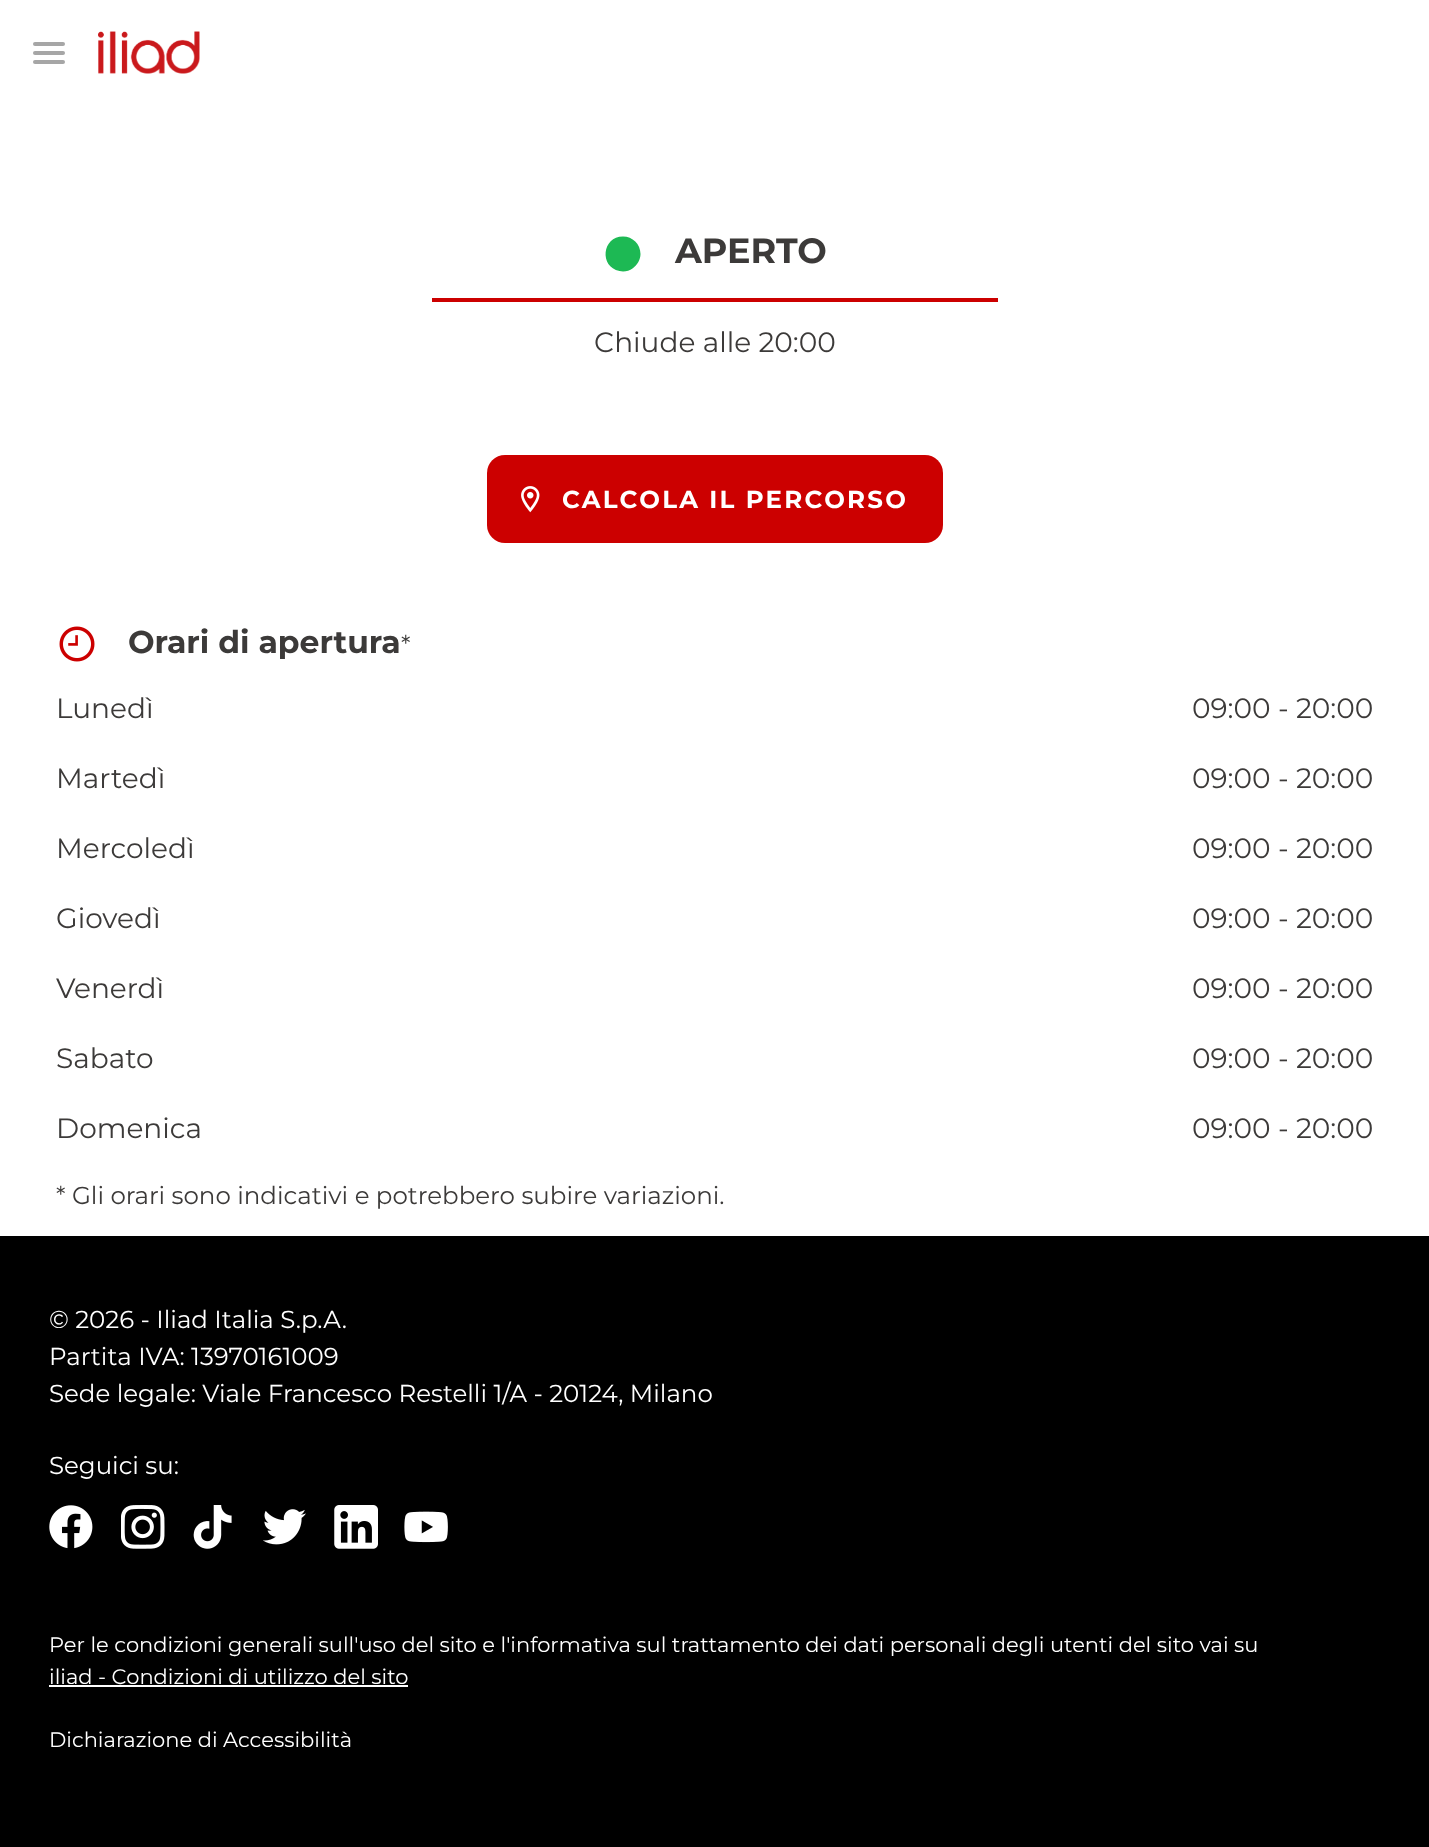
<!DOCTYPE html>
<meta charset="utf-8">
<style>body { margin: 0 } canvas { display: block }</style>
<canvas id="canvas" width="1429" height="1847"></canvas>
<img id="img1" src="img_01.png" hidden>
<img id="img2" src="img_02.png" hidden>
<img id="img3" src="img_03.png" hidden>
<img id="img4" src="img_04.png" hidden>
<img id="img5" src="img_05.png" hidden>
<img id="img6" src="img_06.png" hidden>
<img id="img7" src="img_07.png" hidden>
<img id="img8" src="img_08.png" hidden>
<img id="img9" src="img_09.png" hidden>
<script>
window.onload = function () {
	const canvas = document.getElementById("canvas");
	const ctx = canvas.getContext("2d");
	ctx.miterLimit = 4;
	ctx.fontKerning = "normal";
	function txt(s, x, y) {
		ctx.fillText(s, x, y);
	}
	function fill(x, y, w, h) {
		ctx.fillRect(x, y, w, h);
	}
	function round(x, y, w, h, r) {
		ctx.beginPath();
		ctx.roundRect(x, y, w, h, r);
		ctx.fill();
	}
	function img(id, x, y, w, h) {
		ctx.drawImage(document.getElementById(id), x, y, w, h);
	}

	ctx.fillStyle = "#FFFFFF";
	fill(0, 0, 1429, 1847);
	ctx.fillStyle = "#A6A6A6";
	round(33, 42, 32, 4, 2);
	round(33, 51, 32, 4, 2);
	round(33, 60, 32, 4, 2);
	img("img1", 98, 31, 102, 43);
	ctx.fillStyle = "#1DB954";
	ctx.beginPath();
	ctx.moveTo(623, 236.5);
	ctx.bezierCurveTo(602, 236.5, 599, 267, 619.5, 271);
	ctx.bezierCurveTo(624, 272, 629, 271, 632.5, 268.5);
	ctx.bezierCurveTo(637.5, 265, 640.5, 259.5, 640.5, 254);
	ctx.bezierCurveTo(640.5, 244, 632.5, 236.5, 623, 236.5);
	ctx.closePath();
	ctx.fill();
	ctx.fillStyle = "#CC0000";
	fill(432, 298, 566, 4);
	round(487, 455, 456, 88, 18);
	img("img2", 521, 486, 19, 27);
	img("img3", 59, 626, 36, 36);
	ctx.fillStyle = "#000000";
	fill(0, 1236, 1429, 611);
	img("img4", 49, 1505, 44, 44);
	img("img5", 121, 1505, 44, 44);
	img("img6", 193, 1505, 39, 44);
	img("img7", 263, 1509, 43, 36);
	img("img8", 334, 1505, 44, 44);
	img("img9", 404, 1511, 44, 32);
	ctx.fillStyle = "#FFFFFF";
	fill(49, 1685, 359, 2);
	ctx.font = "100 35px Montserrat";
	ctx.fillStyle = "#3C3A39";
	txt("APERTO", 675, 263);
	ctx.font = "100 28px 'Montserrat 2'";
	txt("Chiude alle 20:00", 594, 352);
	ctx.letterSpacing = "2.2px";
	ctx.font = "100 24.5px Montserrat";
	ctx.fillStyle = "#FFFFFF";
	txt("CALCOLA IL PERCORSO", 562, 508);
	ctx.letterSpacing = "0px";
	ctx.font = "100 31.5px Montserrat";
	ctx.fillStyle = "#3C3A39";
	txt("Orari di apertura", 128, 653);
	ctx.font = "100 24.5px 'Montserrat 2'";
	txt("*", 401, 653);
	ctx.font = "100 28px 'Montserrat 2'";
	txt("Lunedì", 56, 718);
	txt("09:00 - 20:00", 1192, 718);
	txt("Martedì", 56, 788);
	txt("09:00 - 20:00", 1192, 788);
	txt("Mercoledì", 56, 858);
	txt("09:00 - 20:00", 1192, 858);
	txt("Giovedì", 56, 928);
	txt("09:00 - 20:00", 1192, 928);
	txt("Venerdì", 56, 998);
	txt("09:00 - 20:00", 1192, 998);
	txt("Sabato", 56, 1068);
	txt("09:00 - 20:00", 1192, 1068);
	txt("Domenica", 56, 1138);
	txt("09:00 - 20:00", 1192, 1138);
	ctx.font = "100 24.5px 'Montserrat 2'";
	txt("* Gli orari sono indicativi e potrebbero subire variazioni.", 56, 1204);
	ctx.fillStyle = "#FFFFFF";
	txt("© 2026 - Iliad Italia S.p.A.", 49, 1328);
	txt("Partita IVA: 13970161009", 49, 1365);
	txt("Sede legale: Viale Francesco Restelli 1/A - 20124, Milano", 49, 1402);
	txt("Seguici su:", 49, 1474);
	ctx.font = "100 21px 'Montserrat 2'";
	txt("Per le condizioni generali sull'uso del sito e l'informativa sul trattamento dei dati personali degli utenti del sito vai su", 49, 1652);
	txt("iliad - Condizioni di utilizzo del sito", 49, 1684);
	txt("Dichiarazione di Accessibilità", 49, 1747);
};
</script>
